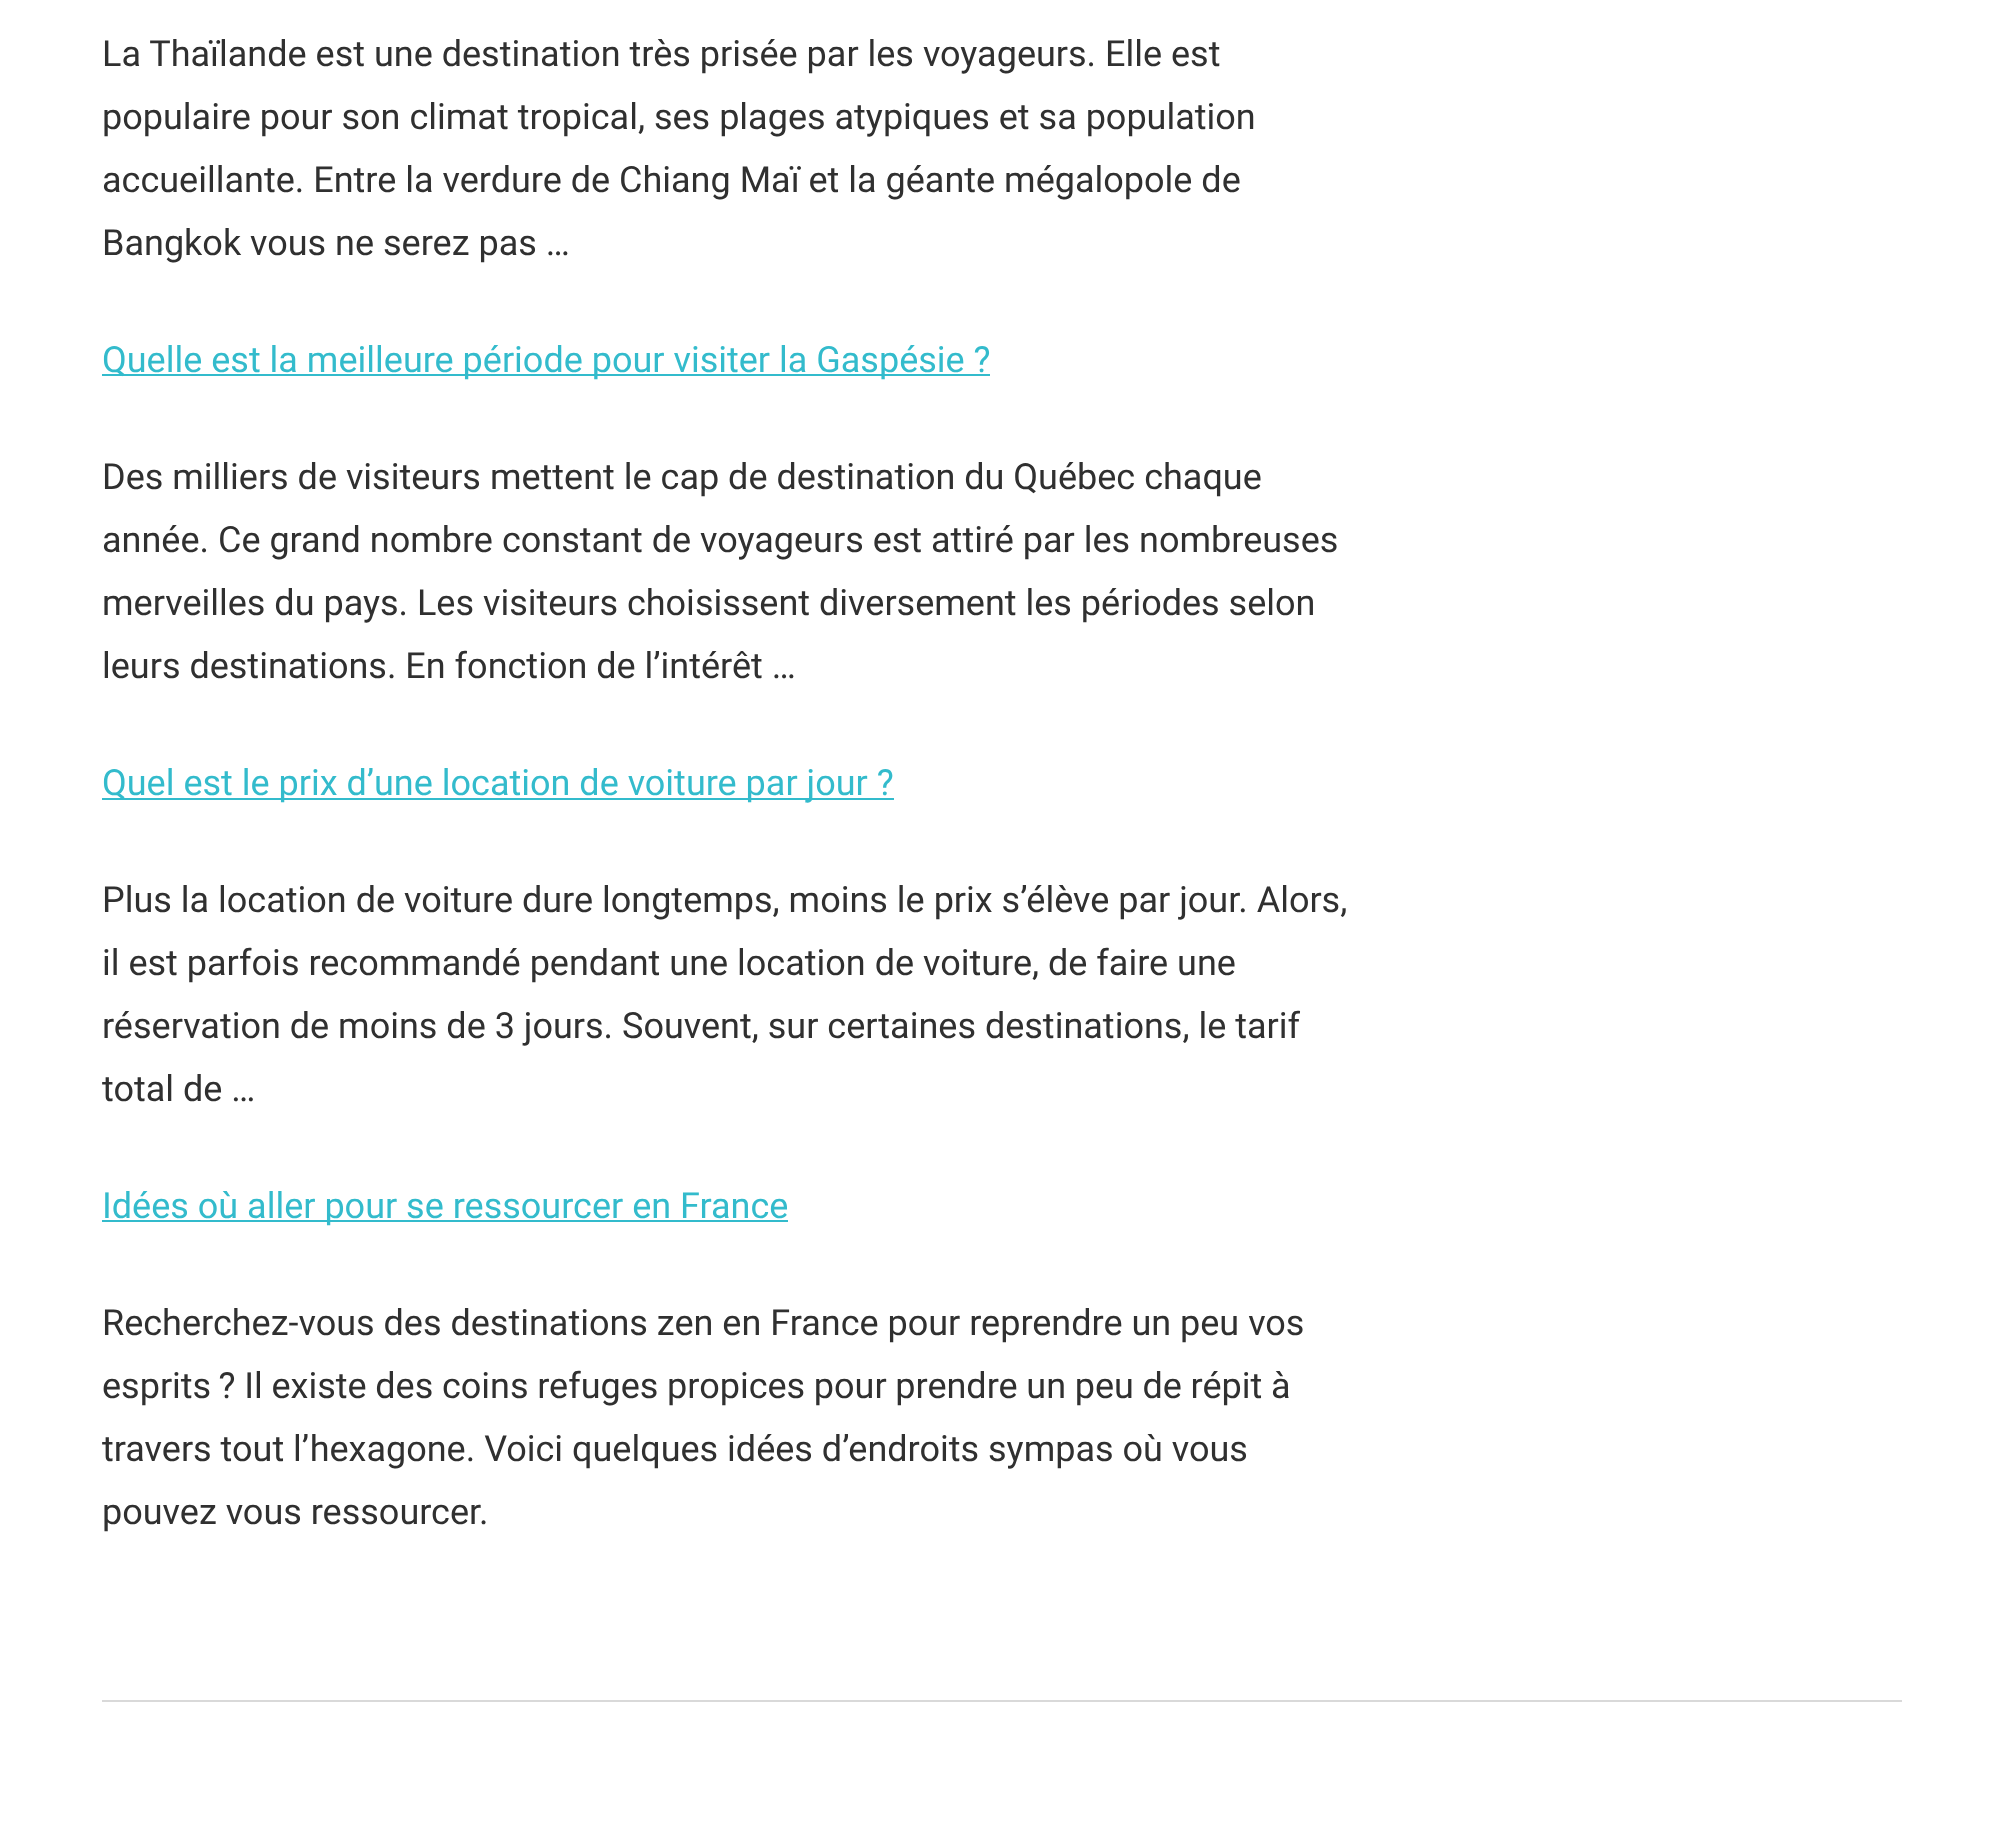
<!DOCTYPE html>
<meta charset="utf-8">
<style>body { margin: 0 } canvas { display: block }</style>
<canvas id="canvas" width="2004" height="1837"></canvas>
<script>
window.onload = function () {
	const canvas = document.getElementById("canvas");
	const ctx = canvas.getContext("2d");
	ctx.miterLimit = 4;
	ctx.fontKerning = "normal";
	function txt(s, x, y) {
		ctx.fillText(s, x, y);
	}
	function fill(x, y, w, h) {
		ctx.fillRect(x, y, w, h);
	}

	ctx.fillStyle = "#FFFFFF";
	fill(0, 0, 2004, 1837);
	ctx.fillStyle = "#33BBCC";
	fill(102, 374, 888, 2);
	fill(102, 798, 792, 2);
	fill(102, 1220, 686, 2);
	ctx.fillStyle = "#D9D9D9";
	fill(102, 1700, 1800, 2);
	ctx.font = "36px Roboto";
	ctx.fillStyle = "#303030";
	txt("La Thaïlande est une destination très prisée par les voyageurs. Elle est", 102, 66);
	txt("populaire pour son climat tropical, ses plages atypiques et sa population", 102, 129);
	txt("accueillante. Entre la verdure de Chiang Maï et la géante mégalopole de", 102, 192);
	txt("Bangkok vous ne serez pas …", 102, 255);
	ctx.fillStyle = "#33BBCC";
	txt("Quelle est la meilleure période pour visiter la Gaspésie ?", 102, 372);
	ctx.fillStyle = "#303030";
	txt("Des milliers de visiteurs mettent le cap de destination du Québec chaque", 102, 489);
	txt("année. Ce grand nombre constant de voyageurs est attiré par les nombreuses", 102, 552);
	txt("merveilles du pays. Les visiteurs choisissent diversement les périodes selon", 102, 615);
	txt("leurs destinations. En fonction de l’intérêt …", 102, 678);
	ctx.fillStyle = "#33BBCC";
	txt("Quel est le prix d’une location de voiture par jour ?", 102, 795);
	ctx.fillStyle = "#303030";
	txt("Plus la location de voiture dure longtemps, moins le prix s’élève par jour. Alors,", 102, 912);
	txt("il est parfois recommandé pendant une location de voiture, de faire une", 102, 975);
	txt("réservation de moins de 3 jours. Souvent, sur certaines destinations, le tarif", 102, 1038);
	txt("total de …", 102, 1101);
	ctx.fillStyle = "#33BBCC";
	txt("Idées où aller pour se ressourcer en France", 102, 1218);
	ctx.fillStyle = "#303030";
	txt("Recherchez-vous des destinations zen en France pour reprendre un peu vos", 102, 1335);
	ctx.wordSpacing = "-0.25px";
	txt("esprits ? Il existe des coins refuges propices pour prendre un peu de répit à", 102, 1398);
	ctx.wordSpacing = "0px";
	txt("travers tout l’hexagone. Voici quelques idées d’endroits sympas où vous", 102, 1461);
	txt("pouvez vous ressourcer.", 102, 1524);
};
</script>
